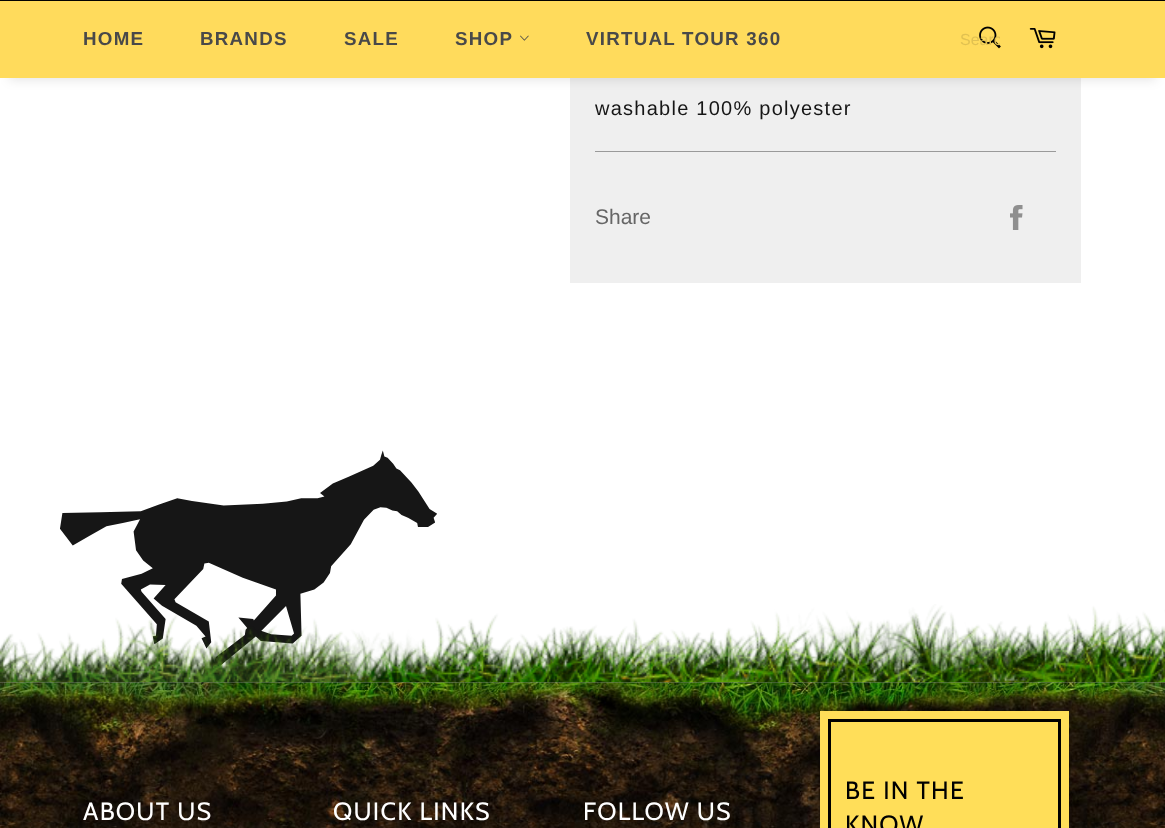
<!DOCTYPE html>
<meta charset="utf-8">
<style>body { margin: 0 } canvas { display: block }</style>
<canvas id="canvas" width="1165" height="828"></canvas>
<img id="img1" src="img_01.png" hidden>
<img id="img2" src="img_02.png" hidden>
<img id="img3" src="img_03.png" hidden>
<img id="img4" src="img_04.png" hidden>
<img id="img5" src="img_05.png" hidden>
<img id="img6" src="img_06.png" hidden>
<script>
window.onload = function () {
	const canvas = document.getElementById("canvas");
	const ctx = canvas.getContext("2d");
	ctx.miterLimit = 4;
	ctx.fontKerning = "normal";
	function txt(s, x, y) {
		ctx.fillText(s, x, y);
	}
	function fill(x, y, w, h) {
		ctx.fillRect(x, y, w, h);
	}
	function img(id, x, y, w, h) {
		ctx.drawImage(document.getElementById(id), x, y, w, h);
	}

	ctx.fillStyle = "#FFFFFF";
	fill(0, 0, 1165, 828);
	ctx.fillStyle = "#EFEFEF";
	fill(570, 78, 511, 205);
	ctx.fillStyle = "rgba(0, 0, 0, 0.1)";
	ctx.filter = "blur(5.5px)";
	ctx.beginPath();
	ctx.rect(9, 20, 1147, 60);
	ctx.fill();
	ctx.filter = "none";
	ctx.fillStyle = "#FFDB5C";
	fill(0, 1, 1165, 77);
	ctx.fillStyle = "#030200";
	fill(0, 0, 1165, 1);
	img("img1", 520, 35, 9, 6);
	img("img2", 979, 26, 22, 23);
	img("img3", 1029, 28, 27, 21);
	ctx.fillStyle = "#9A9A9A";
	fill(595, 151, 461, 1);
	img("img4", 1010, 205, 13, 25);
	img("img5", 0, 682, 1165, 146);
	ctx.fillStyle = "rgba(0, 0, 0, 0.4)";
	ctx.filter = "blur(4.5px)";
	ctx.beginPath();
	ctx.rect(820, 714, 249, 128);
	ctx.fill();
	ctx.filter = "none";
	ctx.fillStyle = "#FFDE59";
	fill(820, 711, 249, 117);
	ctx.strokeStyle = "#000000";
	ctx.lineWidth = 3;
	ctx.strokeRect(829.5, 720.5, 230, 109);
	ctx.letterSpacing = "1.25px";
	ctx.font = "bold 18.75px Arimo";
	ctx.fillStyle = "#494949";
	txt("HOME", 83, 45);
	txt("BRANDS", 200, 45);
	txt("SALE", 344, 45);
	txt("SHOP", 455, 45);
	txt("VIRTUAL TOUR 360", 586, 45);
	ctx.save();
	ctx.beginPath();
	ctx.rect(960, 30, 40, 19);
	ctx.clip();
	ctx.letterSpacing = "0px";
	ctx.font = "16px Arimo";
	ctx.fillStyle = "#E1C151";
	txt("Searc", 960, 45);
	ctx.restore();
	ctx.font = "20px Arimo";
	ctx.fillStyle = "#161616";
	txt("washable 100% polyester", 595, 115);
	ctx.letterSpacing = "0px";
	ctx.font = "21px Arimo";
	ctx.fillStyle = "#666666";
	txt("Share", 595, 224);
	ctx.font = "400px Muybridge";
	ctx.fillStyle = "#161616";
	txt("🐎", 0, 689);
	img("img6", 0, 604, 1165, 79);
	ctx.letterSpacing = "1.25px";
	ctx.font = "25px Cabin";
	ctx.fillStyle = "#FFFFFF";
	txt("ABOUT US", 83, 820);
	txt("QUICK LINKS", 333, 820);
	txt("FOLLOW US", 583, 820);
	ctx.fillStyle = "#000000";
	txt("BE IN THE", 845, 799);
	txt("KNOW", 845, 833);
};
</script>
